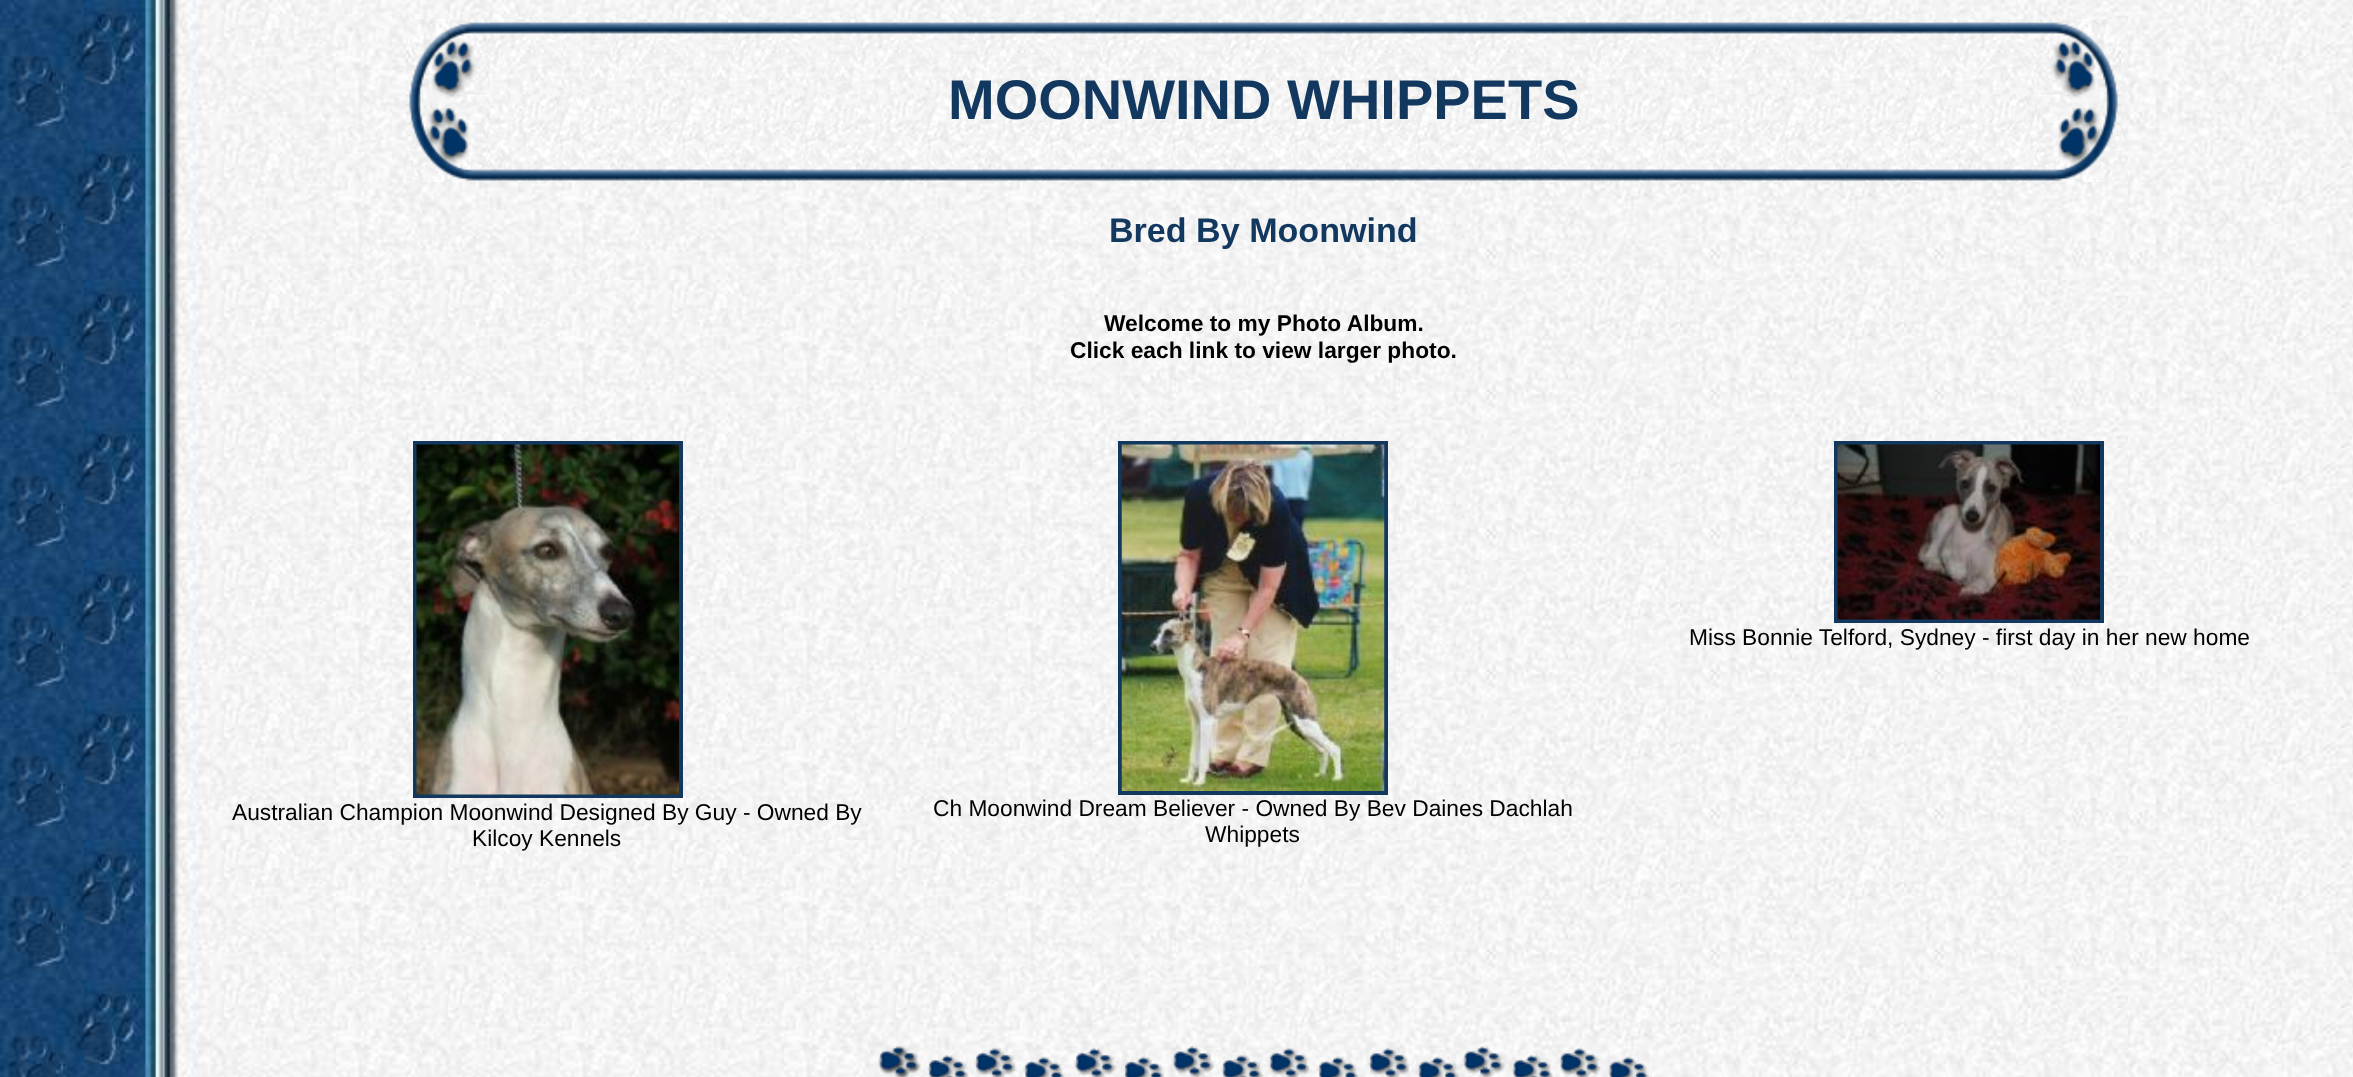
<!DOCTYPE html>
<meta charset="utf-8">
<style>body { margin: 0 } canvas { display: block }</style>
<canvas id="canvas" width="2353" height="1077"></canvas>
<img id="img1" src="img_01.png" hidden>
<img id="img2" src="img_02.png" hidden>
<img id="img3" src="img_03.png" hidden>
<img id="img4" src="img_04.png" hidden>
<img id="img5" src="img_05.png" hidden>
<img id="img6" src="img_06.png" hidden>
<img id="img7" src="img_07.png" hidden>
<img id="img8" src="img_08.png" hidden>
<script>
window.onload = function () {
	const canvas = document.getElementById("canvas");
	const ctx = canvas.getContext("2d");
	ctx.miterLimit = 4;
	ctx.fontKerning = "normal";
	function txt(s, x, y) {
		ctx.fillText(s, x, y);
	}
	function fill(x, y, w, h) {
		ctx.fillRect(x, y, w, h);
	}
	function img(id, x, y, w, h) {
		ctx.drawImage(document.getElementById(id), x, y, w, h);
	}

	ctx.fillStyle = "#FFFFFF";
	fill(0, 0, 2353, 1077);
	img("img1", 0, 0, 2353, 1077);
	img("img2", 406, 19, 84, 163);
	img("img3", 490, 19, 1547, 163);
	img("img4", 2037, 19, 84, 163);
	ctx.fillStyle = "#12385F";
	fill(1834, 441, 270, 182);
	img("img5", 1837, 444, 263, 176);
	fill(413, 441, 270, 357);
	img("img6", 416, 444, 263, 351);
	fill(1118, 441, 270, 354);
	img("img7", 1121, 444, 264, 347);
	img("img8", 878, 1046, 774, 31);
	ctx.font = "bold 56px Liberation Sans";
	txt("MOONWIND WHIPPETS", 948, 119);
	ctx.font = "bold 34.1px Liberation Sans";
	txt("Bred By Moonwind", 1109, 242);
	ctx.font = "bold 22.75px Liberation Sans";
	ctx.fillStyle = "#000000";
	txt("Welcome to my Photo Album.", 1104, 331);
	txt("Click each link to view larger photo.", 1070, 358);
	ctx.font = "22.75px Liberation Sans";
	txt("Miss Bonnie Telford, Sydney - first day in her new home", 1689, 645);
	txt("Australian Champion Moonwind Designed By Guy - Owned By", 232, 820);
	txt("Kilcoy Kennels", 472, 846);
	txt("Ch Moonwind Dream Believer - Owned By Bev Daines Dachlah", 933, 816);
	txt("Whippets", 1205, 842);
};
</script>
